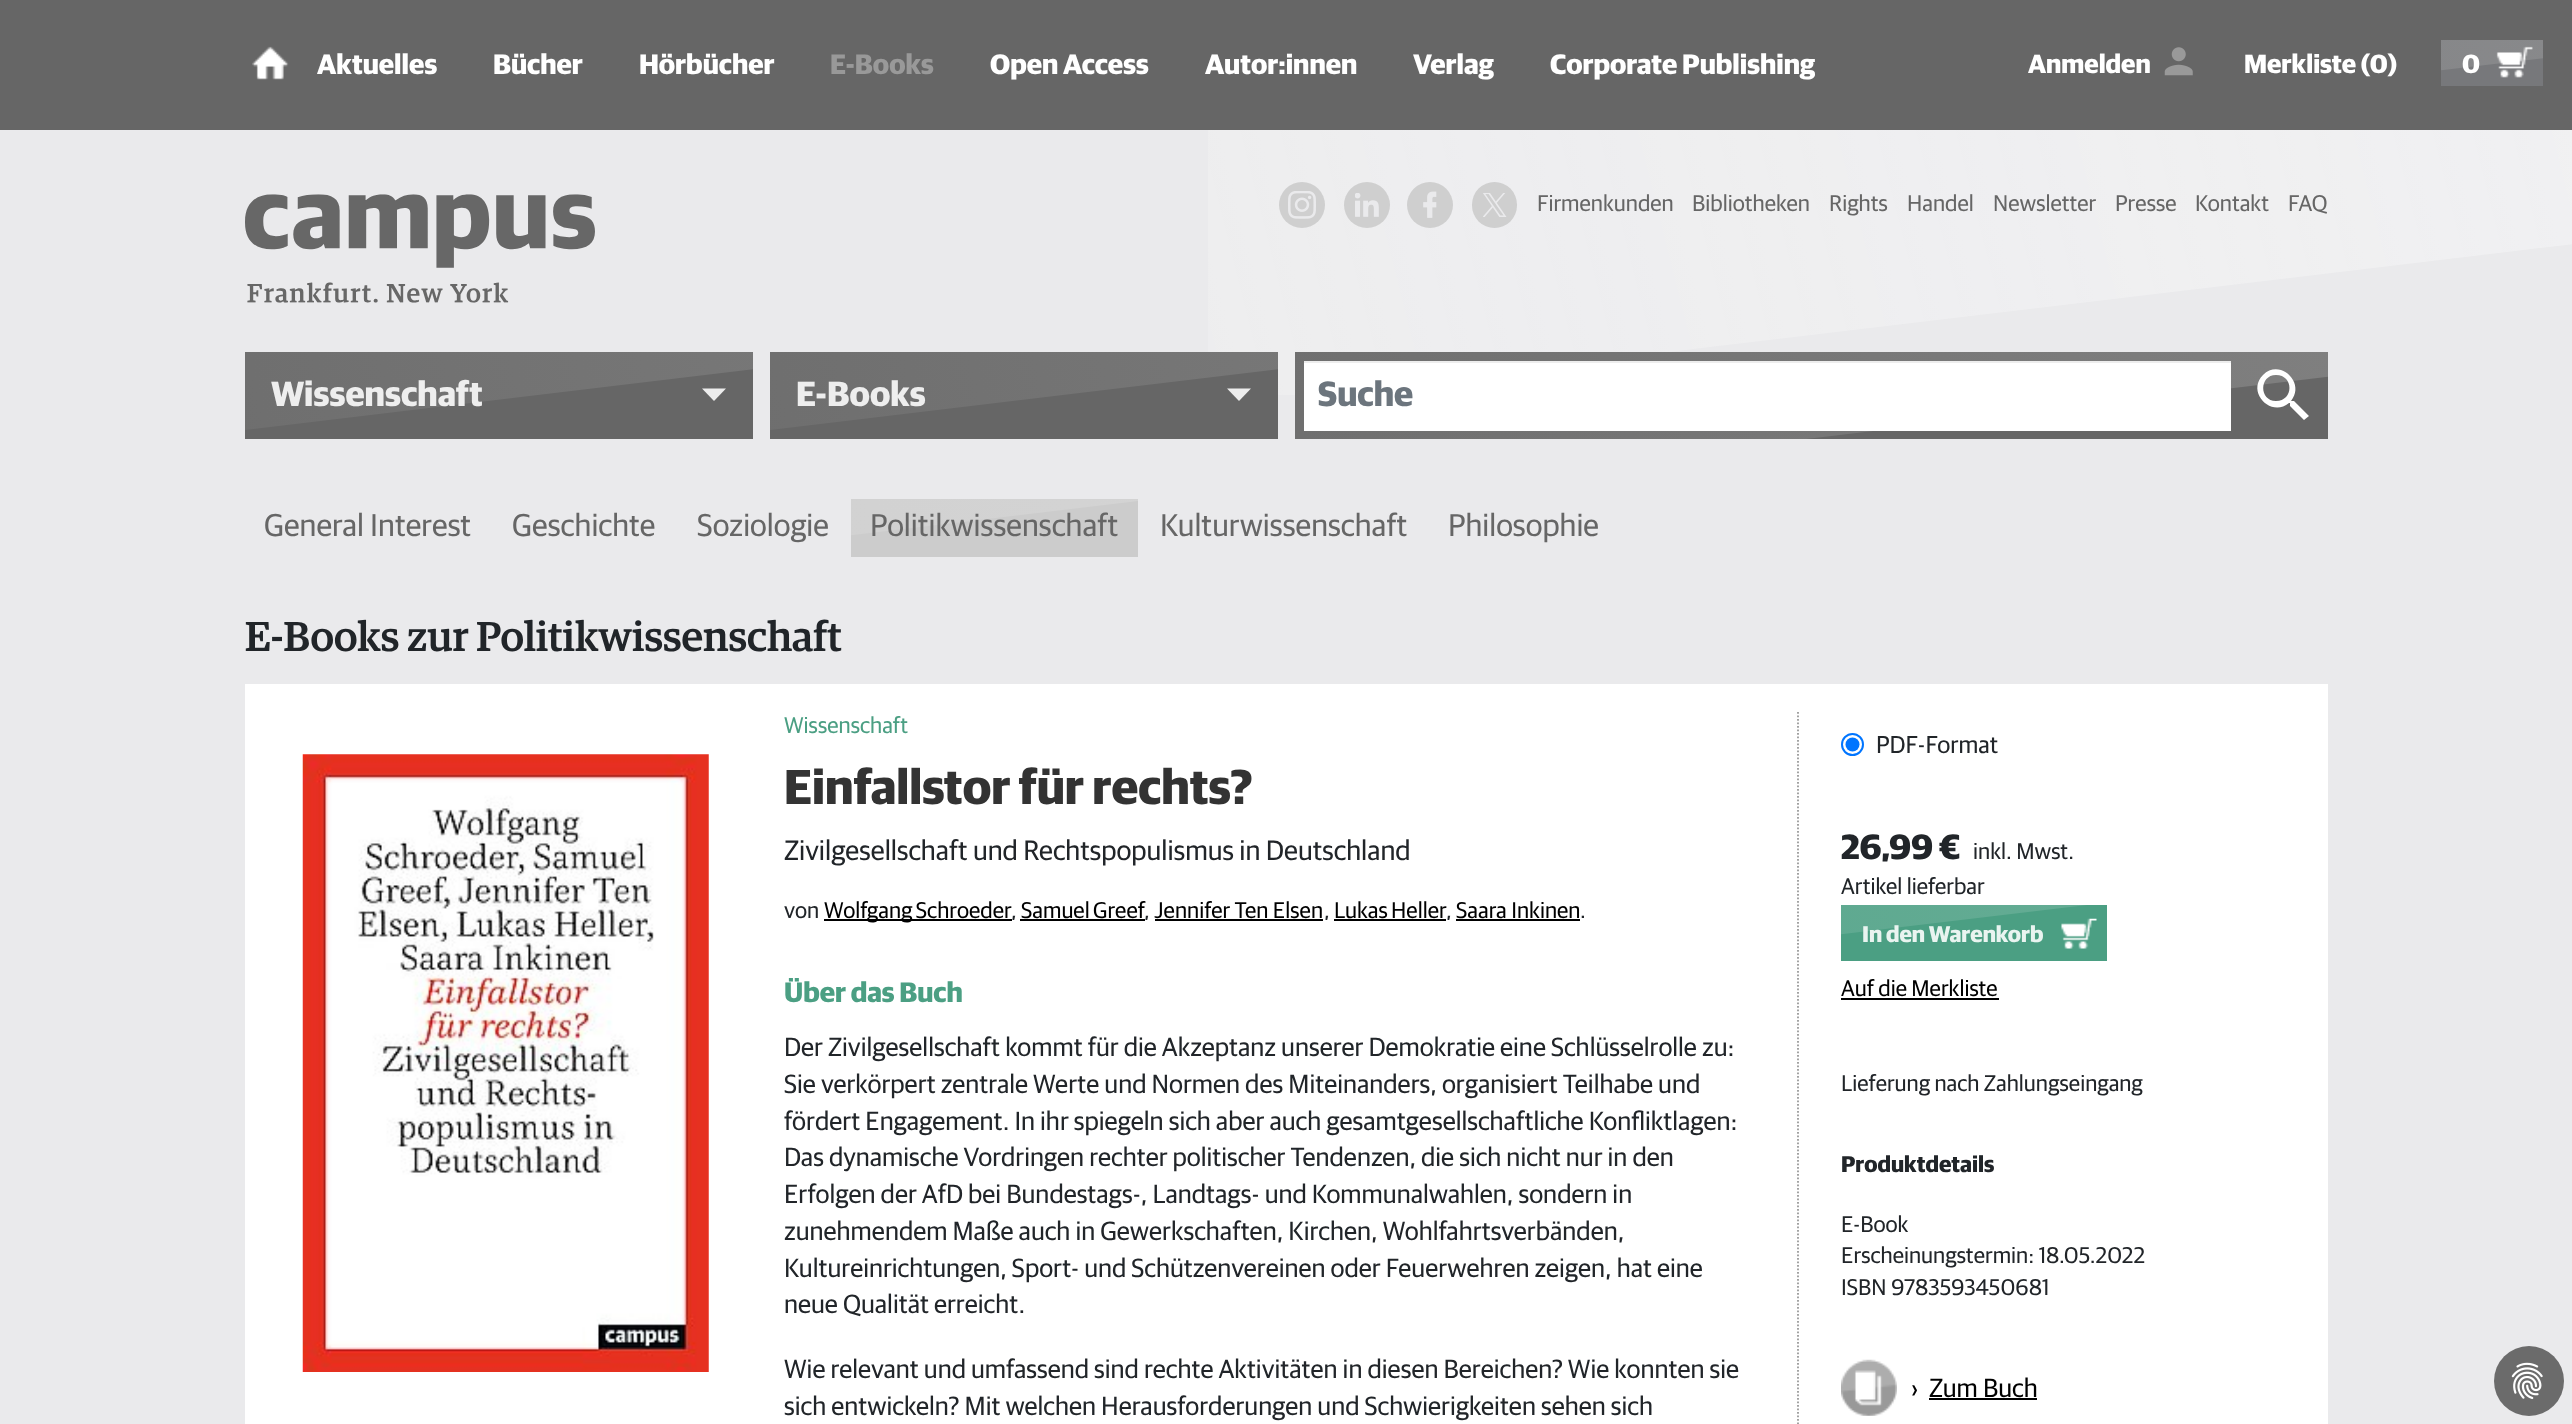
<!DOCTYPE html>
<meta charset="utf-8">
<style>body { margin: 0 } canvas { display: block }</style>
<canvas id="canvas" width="2572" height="1424"></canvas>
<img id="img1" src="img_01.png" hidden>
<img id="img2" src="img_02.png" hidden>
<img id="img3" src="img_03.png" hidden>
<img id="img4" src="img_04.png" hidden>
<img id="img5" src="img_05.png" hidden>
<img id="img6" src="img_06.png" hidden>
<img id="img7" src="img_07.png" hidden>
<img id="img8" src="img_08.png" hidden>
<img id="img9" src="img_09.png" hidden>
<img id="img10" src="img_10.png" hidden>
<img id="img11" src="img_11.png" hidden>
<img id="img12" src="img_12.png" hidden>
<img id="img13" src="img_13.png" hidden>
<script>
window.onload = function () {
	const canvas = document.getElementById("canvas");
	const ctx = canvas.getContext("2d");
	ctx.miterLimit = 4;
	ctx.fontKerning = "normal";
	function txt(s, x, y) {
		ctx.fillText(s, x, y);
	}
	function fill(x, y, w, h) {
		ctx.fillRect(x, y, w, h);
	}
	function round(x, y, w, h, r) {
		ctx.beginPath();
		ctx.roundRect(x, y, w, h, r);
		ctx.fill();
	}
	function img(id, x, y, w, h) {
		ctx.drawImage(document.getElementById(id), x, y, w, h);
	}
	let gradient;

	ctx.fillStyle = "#EAEAEC";
	fill(0, 0, 2572, 1424);
	img("img1", 1208, 130, 1364, 265);
	ctx.fillStyle = "#666666";
	fill(0, 0, 2572, 130);
	img("img2", 252, 46, 37, 34);
	img("img3", 2164, 47, 29, 29);
	ctx.fillStyle = "#77787B";
	fill(2441, 58, 102, 28);
	ctx.save();
	ctx.beginPath();
	ctx.rect(2441, 40, 102, 46);
	ctx.clip();
	gradient = ctx.createLinearGradient(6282, -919, 1700, 233);
	gradient.addColorStop(0, "#BDBDBF");
	gradient.addColorStop(1, "#7C7D7F");
	ctx.fillStyle = gradient;
	ctx.beginPath();
	ctx.moveTo(1916, -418);
	ctx.lineTo(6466, -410);
	ctx.lineTo(1916, 133);
	ctx.closePath();
	ctx.fill("evenodd");
	ctx.restore();
	img("img4", 2496, 46, 37, 32);
	img("img5", 245, 194, 350, 109);
	ctx.fillStyle = "#CFCFCF";
	ctx.beginPath();
	ctx.arc(1302, 205, 23, 0, Math.PI * 2);
	ctx.fill();
	img("img6", 1288, 191, 28, 28);
	ctx.beginPath();
	ctx.arc(1367, 205, 23, 0, Math.PI * 2);
	ctx.fill();
	img("img7", 1355, 193, 24, 24);
	ctx.beginPath();
	ctx.arc(1430, 205, 23, 0, Math.PI * 2);
	ctx.fill();
	img("img8", 1423, 191, 14, 27);
	round(1472, 182, 45, 46, 22.5);
	img("img9", 1483, 193, 24, 24);
	ctx.fillStyle = "#666666";
	fill(245, 369, 508, 70);
	ctx.save();
	ctx.beginPath();
	ctx.rect(245, 352, 508, 79);
	ctx.clip();
	gradient = ctx.createLinearGradient(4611, -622, 29, 531);
	gradient.addColorStop(0, "#B5B5B5");
	gradient.addColorStop(1, "#6B6B6B");
	ctx.fillStyle = gradient;
	ctx.beginPath();
	ctx.moveTo(245, -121);
	ctx.lineTo(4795, -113);
	ctx.lineTo(245, 430);
	ctx.closePath();
	ctx.fill("evenodd");
	ctx.restore();
	ctx.fillStyle = "#EDEDED";
	ctx.beginPath();
	ctx.moveTo(702, 388.5);
	ctx.lineTo(726, 388.5);
	ctx.lineTo(714, 401);
	ctx.closePath();
	ctx.fill();
	ctx.fillStyle = "#666666";
	fill(770, 369, 508, 70);
	ctx.save();
	ctx.beginPath();
	ctx.rect(770, 352, 508, 79);
	ctx.clip();
	gradient = ctx.createLinearGradient(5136, -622, 554, 531);
	gradient.addColorStop(0, "#B5B5B5");
	gradient.addColorStop(1, "#6B6B6B");
	ctx.fillStyle = gradient;
	ctx.beginPath();
	ctx.moveTo(770, -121);
	ctx.lineTo(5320, -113);
	ctx.lineTo(770, 430);
	ctx.closePath();
	ctx.fill("evenodd");
	ctx.restore();
	ctx.fillStyle = "#EDEDED";
	ctx.beginPath();
	ctx.moveTo(1227, 388.5);
	ctx.lineTo(1251, 388.5);
	ctx.lineTo(1239, 401);
	ctx.closePath();
	ctx.fill();
	ctx.fillStyle = "#666666";
	fill(1806, 376, 522, 63);
	ctx.save();
	ctx.beginPath();
	ctx.rect(1295, 352, 1033, 87);
	ctx.clip();
	gradient = ctx.createLinearGradient(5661, -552, 1079, 601);
	gradient.addColorStop(0, "#B5B5B5");
	gradient.addColorStop(1, "#6B6B6B");
	ctx.fillStyle = gradient;
	ctx.beginPath();
	ctx.moveTo(1295, -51);
	ctx.lineTo(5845, -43);
	ctx.lineTo(1295, 500);
	ctx.closePath();
	ctx.fill("evenodd");
	ctx.restore();
	ctx.fillStyle = "#FFFFFF";
	fill(1304, 363, 927, 68);
	ctx.fillStyle = "#EDEDED";
	fill(1304, 361, 927, 2);
	ctx.fillStyle = "#FFFFFF";
	ctx.beginPath();
	ctx.moveTo(2294, 401);
	ctx.lineTo(2292, 401);
	ctx.lineTo(2291, 401);
	ctx.bezierCurveTo(2306, 383, 2280, 358, 2263, 375);
	ctx.bezierCurveTo(2246, 392, 2271, 418, 2289, 403);
	ctx.lineTo(2290, 403);
	ctx.lineTo(2290, 406);
	ctx.lineTo(2304, 420);
	ctx.lineTo(2309, 416);
	ctx.closePath();
	ctx.moveTo(2276, 401);
	ctx.bezierCurveTo(2259, 401, 2259, 375, 2276, 375);
	ctx.bezierCurveTo(2294, 375, 2294, 401, 2276, 401);
	ctx.closePath();
	ctx.fill();
	ctx.fillStyle = "#CCCCCC";
	fill(851, 501, 287, 56);
	ctx.save();
	ctx.beginPath();
	ctx.rect(851, 499, 287, 58);
	ctx.clip();
	gradient = ctx.createLinearGradient(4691, -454, 109, 699);
	gradient.addColorStop(0, "#E6E6E6");
	gradient.addColorStop(1, "#CECECE");
	ctx.fillStyle = gradient;
	ctx.beginPath();
	ctx.moveTo(326, 47);
	ctx.lineTo(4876, 55);
	ctx.lineTo(326, 598);
	ctx.closePath();
	ctx.fill("evenodd");
	ctx.restore();
	ctx.fillStyle = "#FFFFFF";
	fill(245, 684, 2083, 740);
	img("img10", 302, 754, 407, 618);
	ctx.fillStyle = "#000000";
	fill(824, 919, 188, 2);
	fill(1020, 919, 125, 2);
	fill(1155, 919, 168, 2);
	fill(1334, 919, 112, 2);
	fill(1456, 919, 124, 2);
	ctx.beginPath();
	ctx.moveTo(1798, 712);
	ctx.lineTo(1798, 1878);
	ctx.strokeStyle = "#999999";
	ctx.lineWidth = 1.8;
	ctx.setLineDash([1.75, 1.75]);
	ctx.stroke();
	ctx.beginPath();
	ctx.arc(1852.5, 744.5, 10.5, 0, Math.PI * 2);
	ctx.strokeStyle = "#0075FF";
	ctx.lineWidth = 2;
	ctx.setLineDash([]);
	ctx.stroke();
	ctx.fillStyle = "#0075FF";
	ctx.beginPath();
	ctx.arc(1852.5, 744.5, 7, 0, Math.PI * 2);
	ctx.fill();
	ctx.fillStyle = "#4B9F83";
	fill(1841, 905, 266, 56);
	ctx.save();
	ctx.beginPath();
	ctx.rect(1841, 905, 266, 56);
	ctx.clip();
	gradient = ctx.createLinearGradient(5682, -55, 1100, 1098);
	gradient.addColorStop(0, "#A8D0C3");
	gradient.addColorStop(1, "#51A287");
	ctx.fillStyle = gradient;
	ctx.beginPath();
	ctx.moveTo(1316, 446);
	ctx.lineTo(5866, 454);
	ctx.lineTo(1316, 997);
	ctx.closePath();
	ctx.fill("evenodd");
	ctx.restore();
	img("img11", 2061, 918, 36, 31);
	ctx.fillStyle = "#000000";
	fill(1841, 998, 158, 2);
	img("img12", 1841, 1359, 56, 57);
	fill(1929, 1398, 108, 2);
	ctx.fillStyle = "#6B6B6B";
	ctx.beginPath();
	ctx.arc(2529, 1381, 35, 0, Math.PI * 2);
	ctx.fill();
	img("img13", 2511, 1362, 32, 38);
	ctx.font = "bold 28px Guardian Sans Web";
	ctx.fillStyle = "#FFFFFF";
	txt("Aktuelles", 317, 74);
	txt("Bücher", 493, 74);
	txt("Hörbücher", 639, 74);
	ctx.fillStyle = "#999999";
	txt("E-Books", 830, 74);
	ctx.fillStyle = "#FFFFFF";
	txt("Open Access", 990, 74);
	txt("Autor:innen", 1205, 74);
	txt("Verlag", 1413, 74);
	txt("Corporate Publishing", 1550, 74);
	ctx.font = "bold 26.25px Guardian Sans Web";
	txt("Anmelden", 2028, 73);
	txt("Merkliste (0)", 2244, 73);
	txt("0", 2462, 73);
	ctx.font = "22.75px Guardian Sans Web";
	ctx.fillStyle = "#666666";
	txt("Firmenkunden", 1537, 211);
	txt("Bibliotheken", 1692, 211);
	txt("Rights", 1829, 211);
	txt("Handel", 1907, 211);
	txt("Newsletter", 1993, 211);
	txt("Presse", 2115, 211);
	txt("Kontakt", 2195, 211);
	txt("FAQ", 2288, 211);
	ctx.font = "bold 35px Guardian Sans Web";
	ctx.fillStyle = "#EEEEEE";
	txt("Wissenschaft", 271, 406);
	txt("E-Books", 796, 406);
	ctx.fillStyle = "#6C757D";
	txt("Suche", 1318, 406);
	ctx.font = "31.5px Guardian Sans Web";
	ctx.fillStyle = "#666666";
	txt("General Interest", 264, 536);
	txt("Geschichte", 512, 536);
	txt("Soziologie", 697, 536);
	txt("Politikwissenschaft", 870, 536);
	txt("Kulturwissenschaft", 1160, 536);
	txt("Philosophie", 1448, 536);
	ctx.font = "500 42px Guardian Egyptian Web";
	ctx.fillStyle = "#212529";
	txt("E-Books zur Politikwissenschaft", 245, 651);
	ctx.font = "22.75px Guardian Sans Web";
	ctx.fillStyle = "#4B9F83";
	txt("Wissenschaft", 784, 733);
	ctx.font = "bold 49px Guardian Sans Web";
	ctx.fillStyle = "#333333";
	txt("Einfallstor für rechts?", 784, 804);
	ctx.font = "28px Guardian Sans Web";
	ctx.fillStyle = "#212529";
	txt("Zivilgesellschaft und Rechtspopulismus in Deutschland", 784, 860);
	ctx.font = "22.75px Guardian Sans Web";
	txt("von", 784, 918);
	ctx.wordSpacing = "-1px";
	ctx.fillStyle = "#000000";
	txt("Wolfgang Schroeder", 824, 918);
	ctx.wordSpacing = "0px";
	ctx.fillStyle = "#212529";
	txt(",", 1011, 918);
	ctx.wordSpacing = "-1px";
	ctx.fillStyle = "#000000";
	txt("Samuel Greef", 1021, 918);
	ctx.wordSpacing = "0px";
	ctx.fillStyle = "#212529";
	txt(",", 1144, 918);
	ctx.fillStyle = "#000000";
	txt("Jennifer Ten Elsen", 1154, 918);
	ctx.fillStyle = "#212529";
	txt(",", 1324, 918);
	ctx.wordSpacing = "-1px";
	ctx.fillStyle = "#000000";
	txt("Lukas Heller", 1334, 918);
	ctx.wordSpacing = "0px";
	ctx.fillStyle = "#212529";
	txt(",", 1446, 918);
	ctx.fillStyle = "#000000";
	txt("Saara Inkinen", 1456, 918);
	ctx.fillStyle = "#212529";
	txt(".", 1580, 918);
	ctx.font = "bold 28px Guardian Sans Web";
	ctx.fillStyle = "#4B9F83";
	txt("Über das Buch", 784, 1002);
	ctx.font = "26.25px Guardian Sans Web";
	ctx.fillStyle = "#212529";
	txt("Der Zivilgesellschaft kommt für die Akzeptanz unserer Demokratie eine Schlüsselrolle zu:", 784, 1056);
	txt("Sie verkörpert zentrale Werte und Normen des Miteinanders, organisiert Teilhabe und", 784, 1093);
	txt("fördert Engagement. In ihr spiegeln sich aber auch gesamtgesellschaftliche Konfliktlagen:", 784, 1130);
	txt("Das dynamische Vordringen rechter politischer Tendenzen, die sich nicht nur in den", 784, 1166);
	txt("Erfolgen der AfD bei Bundestags-, Landtags- und Kommunalwahlen, sondern in", 784, 1203);
	txt("zunehmendem Maße auch in Gewerkschaften, Kirchen, Wohlfahrtsverbänden,", 784, 1240);
	txt("Kultureinrichtungen, Sport- und Schützenvereinen oder Feuerwehren zeigen, hat eine", 784, 1277);
	txt("neue Qualität erreicht.", 784, 1313);
	txt("Wie relevant und umfassend sind rechte Aktivitäten in diesen Bereichen? Wie konnten sie", 784, 1378);
	txt("sich entwickeln? Mit welchen Herausforderungen und Schwierigkeiten sehen sich", 784, 1415);
	ctx.font = "24.5px Guardian Sans Web";
	txt("PDF-Format", 1876, 753);
	ctx.font = "bold 35px Guardian Sans Web";
	txt("26,99 €", 1841, 859);
	ctx.font = "22.75px Guardian Sans Web";
	txt("inkl. Mwst.", 1973, 859);
	txt("Artikel lieferbar", 1841, 894);
	ctx.font = "bold 22.75px Guardian Sans Web";
	ctx.fillStyle = "#E9F4F0";
	txt("In den Warenkorb", 1862, 942);
	ctx.font = "22.75px Guardian Sans Web";
	ctx.fillStyle = "#000000";
	txt("Auf die Merkliste", 1841, 996);
	ctx.fillStyle = "#212529";
	txt("Lieferung nach Zahlungseingang", 1841, 1091);
	ctx.font = "bold 22.75px Guardian Sans Web";
	txt("Produktdetails", 1841, 1172);
	ctx.font = "22.75px Guardian Sans Web";
	txt("E-Book", 1841, 1232);
	txt("Erscheinungstermin: 18.05.2022", 1841, 1263);
	txt("ISBN 9783593450681", 1841, 1295);
	ctx.font = "26.25px Guardian Sans Web";
	ctx.fillStyle = "#000000";
	txt("›", 1911, 1397);
	txt("Zum Buch", 1929, 1397);
};
</script>
